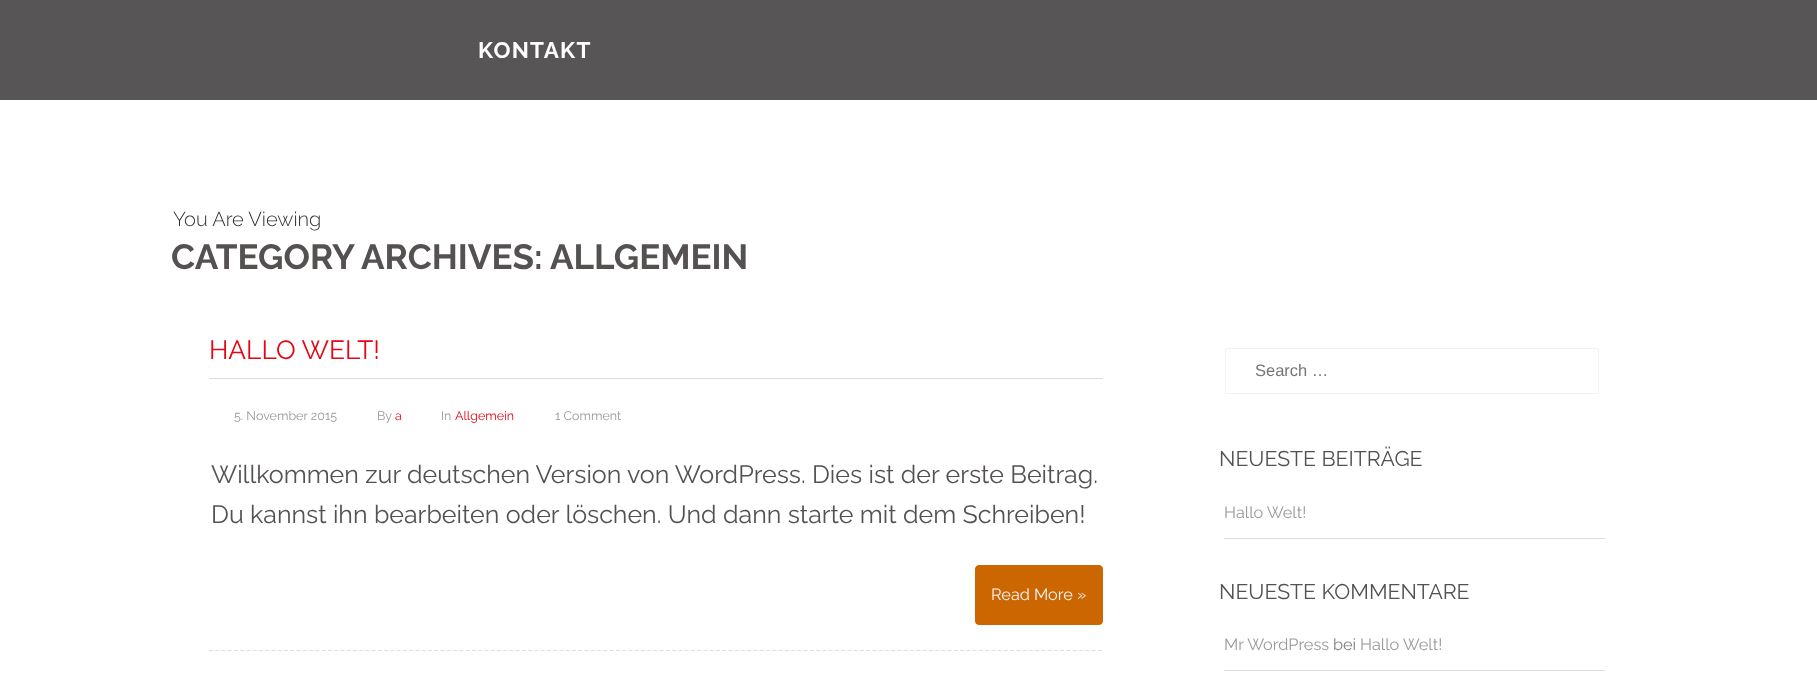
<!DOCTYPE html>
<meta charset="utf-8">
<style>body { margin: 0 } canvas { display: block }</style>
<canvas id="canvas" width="1817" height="697"></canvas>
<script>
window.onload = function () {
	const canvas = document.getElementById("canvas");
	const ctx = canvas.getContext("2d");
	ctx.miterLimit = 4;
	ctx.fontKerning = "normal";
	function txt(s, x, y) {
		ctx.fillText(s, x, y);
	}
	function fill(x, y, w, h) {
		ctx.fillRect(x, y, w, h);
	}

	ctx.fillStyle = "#FFFFFF";
	fill(0, 0, 1817, 697);
	ctx.fillStyle = "#575556";
	fill(0, 0, 1817, 100);
	ctx.beginPath();
	ctx.moveTo(209, 650.5);
	ctx.lineTo(1102.5, 650.5);
	ctx.strokeStyle = "#DEDEDE";
	ctx.lineWidth = 1.2;
	ctx.setLineDash([3.75, 2.51]);
	ctx.stroke();
	ctx.fillStyle = "#DEDEDE";
	fill(209, 378, 894, 1);
	ctx.fillStyle = "#CC6600";
	ctx.beginPath();
	ctx.roundRect(975.5, 565.5, 127, 59, 3.5);
	ctx.fill();
	ctx.strokeStyle = "#CC6600";
	ctx.lineWidth = 1;
	ctx.setLineDash([]);
	ctx.stroke();
	ctx.beginPath();
	ctx.roundRect(1225.5, 348.5, 373, 45, 0.5);
	ctx.strokeStyle = "#F2F2F2";
	ctx.stroke();
	ctx.fillStyle = "#DEDEDE";
	fill(1224, 538, 381, 1);
	fill(1224, 670, 381, 1);
	ctx.letterSpacing = "1.25px";
	ctx.font = "bold 22.5px Raleway";
	ctx.fillStyle = "#FFFFFF";
	txt("KONTAKT", 478, 58);
	ctx.letterSpacing = "0px";
	ctx.font = "300 20px Raleway";
	ctx.fillStyle = "#303030";
	txt("You Are Viewing", 173, 226);
	ctx.font = "bold 35px Raleway";
	ctx.fillStyle = "#545150";
	txt("CATEGORY ARCHIVES: ALLGEMEIN", 171, 269);
	ctx.font = "26.25px Raleway";
	ctx.fillStyle = "#E30613";
	txt("HALLO WELT!", 209, 359);
	ctx.font = "12.5px Raleway";
	ctx.fillStyle = "#999999";
	txt("5. November 2015", 234, 420);
	txt("By", 377, 420);
	ctx.fillStyle = "#E30613";
	txt("a", 395, 420);
	ctx.fillStyle = "#999999";
	txt("In", 441, 420);
	ctx.fillStyle = "#E30613";
	txt("Allgemein", 455, 420);
	ctx.fillStyle = "#999999";
	txt("1 Comment", 555, 420);
	ctx.font = "25px Raleway";
	ctx.fillStyle = "#545150";
	txt("Willkommen zur deutschen Version von WordPress. Dies ist der erste Beitrag.", 211, 483);
	txt("Du kannst ihn bearbeiten oder löschen. Und dann starte mit dem Schreiben!", 211, 523);
	ctx.font = "16.25px Raleway";
	ctx.fillStyle = "#F5F5F5";
	txt("Read More »", 991, 600);
	ctx.font = "16.5px Liberation Sans";
	ctx.fillStyle = "#757575";
	txt("Search …", 1255, 376);
	ctx.font = "21.25px Raleway";
	ctx.fillStyle = "#545150";
	txt("NEUESTE BEITRÄGE", 1219, 466);
	ctx.font = "16.25px Raleway";
	ctx.fillStyle = "#999999";
	txt("Hallo Welt!", 1224, 518);
	ctx.font = "21.25px Raleway";
	ctx.fillStyle = "#545150";
	txt("NEUESTE KOMMENTARE", 1219, 599);
	ctx.font = "16.25px Raleway";
	ctx.fillStyle = "#999999";
	txt("Mr WordPress", 1224, 650);
	ctx.fillStyle = "#808080";
	txt("bei", 1333, 650);
	ctx.fillStyle = "#999999";
	txt("Hallo Welt!", 1360, 650);
};
</script>
